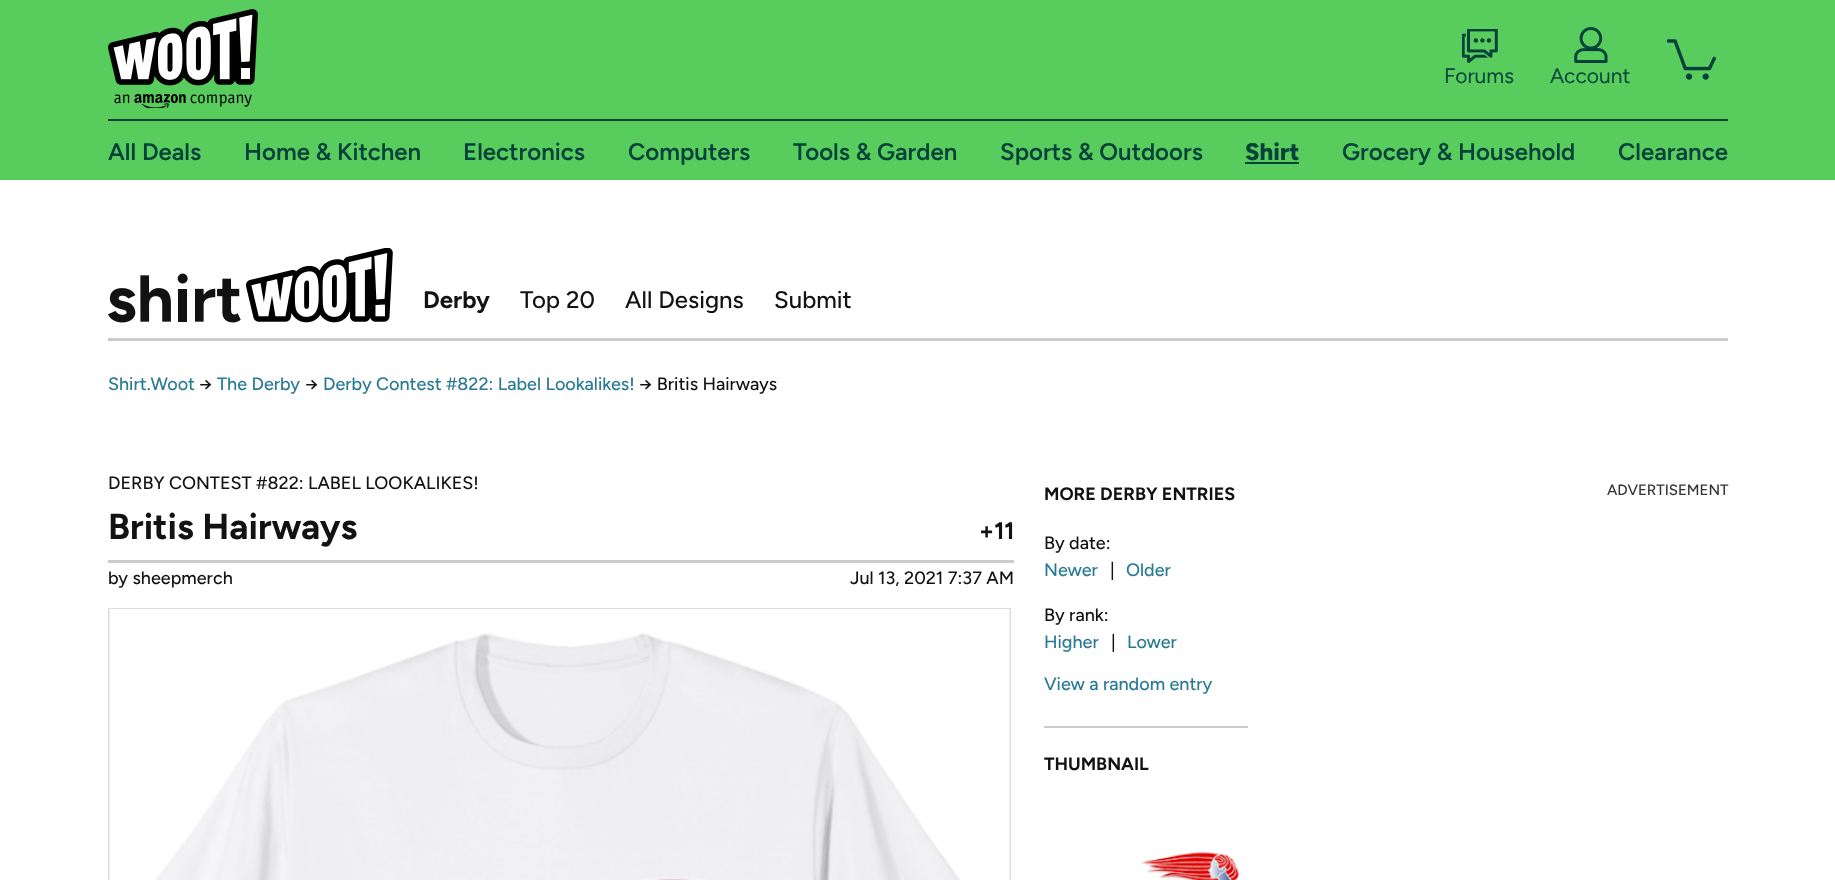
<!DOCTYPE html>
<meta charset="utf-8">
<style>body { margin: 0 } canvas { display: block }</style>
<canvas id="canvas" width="1835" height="880"></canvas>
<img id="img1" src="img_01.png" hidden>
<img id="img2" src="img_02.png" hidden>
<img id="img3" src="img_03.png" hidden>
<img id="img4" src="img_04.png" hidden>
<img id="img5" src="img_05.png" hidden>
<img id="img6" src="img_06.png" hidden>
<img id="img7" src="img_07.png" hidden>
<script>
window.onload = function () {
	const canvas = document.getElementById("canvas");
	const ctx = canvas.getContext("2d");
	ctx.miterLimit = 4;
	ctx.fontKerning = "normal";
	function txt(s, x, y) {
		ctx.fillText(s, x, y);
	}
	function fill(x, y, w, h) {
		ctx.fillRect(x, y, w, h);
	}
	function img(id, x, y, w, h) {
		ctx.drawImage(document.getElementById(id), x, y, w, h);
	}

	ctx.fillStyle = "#FFFFFF";
	fill(0, 0, 1835, 880);
	ctx.fillStyle = "#58CD5D";
	fill(0, 0, 1835, 180);
	ctx.fillStyle = "#05413A";
	fill(108, 119, 1620, 2);
	img("img1", 108, 9, 150, 99);
	img("img2", 1462, 29, 36, 34);
	img("img3", 1574, 27, 34, 36);
	img("img4", 1667, 39, 49, 41);
	fill(1245, 162, 54, 2);
	ctx.fillStyle = "#C8CCCC";
	fill(108, 338, 1620, 3);
	img("img5", 108, 248, 285, 75);
	ctx.fillStyle = "#CCCCCC";
	fill(108, 560, 906, 3);
	ctx.strokeStyle = "#DDDDDD";
	ctx.lineWidth = 2;
	ctx.strokeRect(109, 609, 901, 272);
	img("img6", 109, 609, 901, 271);
	fill(1044, 726, 204, 2);
	img("img7", 1141, 852, 98, 28);
	ctx.font = "21px Figtree";
	ctx.fillStyle = "#05413A";
	txt("Forums", 1444, 83);
	txt("Account", 1550, 83);
	ctx.font = "600 24px Figtree";
	txt("All Deals", 108, 160);
	txt("Home & Kitchen", 244, 160);
	txt("Electronics", 463, 160);
	txt("Computers", 628, 160);
	txt("Tools & Garden", 793, 160);
	txt("Sports & Outdoors", 1000, 160);
	ctx.font = "800 24px Figtree";
	txt("Shirt", 1245, 160);
	ctx.font = "600 24px Figtree";
	txt("Grocery & Household", 1342, 160);
	txt("Clearance", 1618, 160);
	ctx.font = "bold 24px Figtree";
	ctx.fillStyle = "#121212";
	txt("Derby", 423, 308);
	ctx.font = "500 24px Figtree";
	txt("Top 20", 520, 308);
	txt("All Designs", 625, 308);
	txt("Submit", 774, 308);
	ctx.font = "500 18px Figtree";
	ctx.fillStyle = "#297A94";
	txt("Shirt.Woot", 108, 390);
	ctx.fillStyle = "#121212";
	txt("→", 199, 390);
	ctx.fillStyle = "#297A94";
	txt("The Derby", 217, 390);
	ctx.fillStyle = "#121212";
	txt("→", 305, 390);
	ctx.fillStyle = "#297A94";
	txt("Derby Contest #822: Label Lookalikes!", 323, 390);
	ctx.fillStyle = "#121212";
	txt("→ Britis Hairways", 639, 390);
	txt("DERBY CONTEST #822: LABEL LOOKALIKES!", 108, 489);
	ctx.font = "bold 36px Figtree";
	txt("Britis Hairways", 108, 539);
	ctx.font = "bold 24px Figtree";
	txt("+11", 979, 539);
	ctx.font = "500 18px Figtree";
	txt("by sheepmerch", 108, 584);
	txt("Jul 13, 2021 7:37 AM", 850, 584);
	ctx.font = "bold 18px Figtree";
	txt("MORE DERBY ENTRIES", 1044, 500);
	ctx.font = "500 18px Figtree";
	txt("By date:", 1044, 549);
	ctx.fillStyle = "#297A94";
	txt("Newer", 1044, 576);
	ctx.fillStyle = "#121212";
	txt("|", 1110, 576);
	ctx.fillStyle = "#297A94";
	txt("Older", 1126, 576);
	ctx.fillStyle = "#121212";
	txt("By rank:", 1044, 621);
	ctx.fillStyle = "#297A94";
	txt("Higher", 1044, 648);
	ctx.fillStyle = "#121212";
	txt("|", 1111, 648);
	ctx.fillStyle = "#297A94";
	txt("Lower", 1127, 648);
	txt("View a random entry", 1044, 690);
	ctx.font = "bold 18px Figtree";
	ctx.fillStyle = "#121212";
	txt("THUMBNAIL", 1044, 770);
	ctx.font = "500 15px Figtree";
	ctx.fillStyle = "#333333";
	txt("ADVERTISEMENT", 1607, 495);
};
</script>
